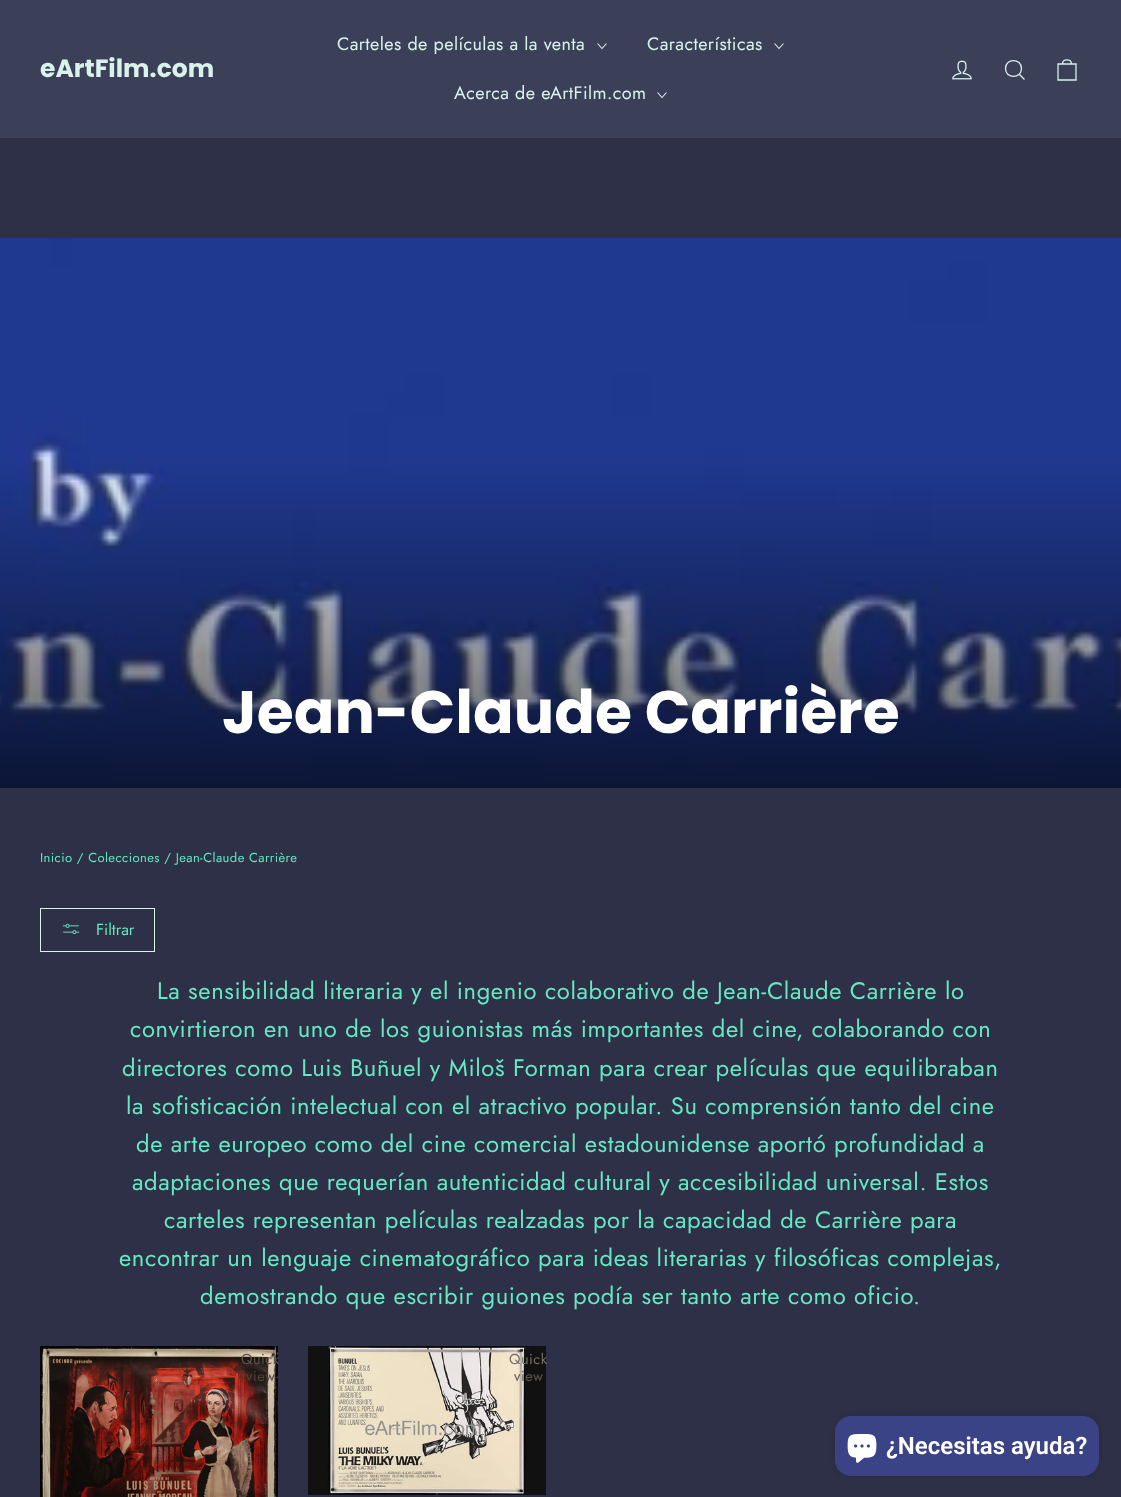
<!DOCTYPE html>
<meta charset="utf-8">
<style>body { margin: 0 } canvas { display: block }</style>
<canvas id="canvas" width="1121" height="1497"></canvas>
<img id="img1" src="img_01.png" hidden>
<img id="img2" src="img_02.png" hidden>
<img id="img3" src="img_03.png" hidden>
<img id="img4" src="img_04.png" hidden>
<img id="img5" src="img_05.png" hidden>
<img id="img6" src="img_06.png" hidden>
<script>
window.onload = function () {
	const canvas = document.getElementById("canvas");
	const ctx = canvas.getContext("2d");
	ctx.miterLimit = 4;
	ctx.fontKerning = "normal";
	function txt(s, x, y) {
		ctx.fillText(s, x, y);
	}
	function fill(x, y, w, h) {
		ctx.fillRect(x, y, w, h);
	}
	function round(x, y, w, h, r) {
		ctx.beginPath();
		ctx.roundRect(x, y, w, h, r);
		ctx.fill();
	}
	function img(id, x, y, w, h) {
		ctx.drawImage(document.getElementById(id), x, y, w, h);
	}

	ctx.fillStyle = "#2E3047";
	fill(0, 0, 1121, 1497);
	ctx.fillStyle = "#3C3F58";
	fill(0, 0, 1121, 138);
	ctx.beginPath();
	ctx.moveTo(597.5, 43.5);
	ctx.lineTo(602, 48.5);
	ctx.lineTo(606.5, 43.5);
	ctx.strokeStyle = "#D9F2EB";
	ctx.lineWidth = 1.1;
	ctx.stroke();
	ctx.beginPath();
	ctx.moveTo(774.5, 43.5);
	ctx.lineTo(779, 48.5);
	ctx.lineTo(783.5, 43.5);
	ctx.stroke();
	ctx.beginPath();
	ctx.moveTo(657.5, 92.5);
	ctx.lineTo(662, 97.5);
	ctx.lineTo(666.5, 92.5);
	ctx.stroke();
	img("img1", 952, 60, 20, 20);
	ctx.beginPath();
	ctx.moveTo(1021.5, 68.5);
	ctx.bezierCurveTo(1021.5, 79, 1005.5, 79, 1005.5, 68.5);
	ctx.bezierCurveTo(1005.5, 58, 1021.5, 58, 1021.5, 68.5);
	ctx.closePath();
	ctx.moveTo(1024.5, 79.5);
	ctx.lineTo(1019.5, 74.5);
	ctx.lineWidth = 1.3;
	ctx.stroke();
	ctx.beginPath();
	ctx.moveTo(1058, 64);
	ctx.lineTo(1076, 64);
	ctx.lineTo(1076, 80);
	ctx.lineTo(1058, 80);
	ctx.closePath();
	ctx.moveTo(1062.5, 64);
	ctx.bezierCurveTo(1062.5, 58.5, 1071.5, 58.5, 1071.5, 64);
	ctx.stroke();
	img("img2", 0, 238, 1121, 550);
	ctx.lineWidth = 1;
	ctx.strokeRect(40.5, 908.5, 114, 43);
	img("img3", 62, 923, 18, 12);
	img("img4", 40, 1346, 238, 151);
	img("img5", 308, 1346, 238, 149);
	ctx.fillStyle = "rgba(0, 0, 0, 0.15)";
	ctx.filter = "blur(2.5px)";
	ctx.beginPath();
	ctx.roundRect(835, 1416, 264, 60, 16);
	ctx.fill();
	ctx.filter = "none";
	ctx.fillStyle = "#3B4387";
	round(835, 1416, 264, 60, 16);
	img("img6", 847, 1434, 30, 29);
	ctx.font = "bold 25px Poppins";
	ctx.fillStyle = "#D9F2EB";
	txt("eArtFilm.com", 40, 77);
	ctx.letterSpacing = "0.4px";
	ctx.font = "18px Jost";
	txt("Carteles de películas a la venta", 337, 50);
	txt("Características", 647, 50);
	txt("Acerca de eArtFilm.com", 454, 99);
	ctx.letterSpacing = "0px";
	ctx.font = "bold 60px Poppins";
	ctx.fillStyle = "#FFFFFF";
	txt("Jean-Claude Carrière", 222, 733);
	ctx.letterSpacing = "0.4px";
	ctx.font = "13px Jost";
	ctx.fillStyle = "#67E7C4";
	txt("Inicio / Colecciones / Jean-Claude Carrière", 40, 862);
	ctx.letterSpacing = "0px";
	ctx.font = "16px Jost";
	txt("Filtrar", 96, 935);
	ctx.letterSpacing = "0.6px";
	ctx.font = "23.8px Jost";
	txt("La sensibilidad literaria y el ingenio colaborativo de Jean-Claude Carrière lo", 157, 999);
	txt("convirtieron en uno de los guionistas más importantes del cine, colaborando con", 130, 1037);
	txt("directores como Luis Buñuel y Miloš Forman para crear películas que equilibraban", 122, 1076);
	txt("la sofisticación intelectual con el atractivo popular. Su comprensión tanto del cine", 126, 1114);
	txt("de arte europeo como del cine comercial estadounidense aportó profundidad a", 136, 1152);
	txt("adaptaciones que requerían autenticidad cultural y accesibilidad universal. Estos", 132, 1190);
	txt("carteles representan películas realzadas por la capacidad de Carrière para", 164, 1228);
	txt("encontrar un lenguaje cinematográfico para ideas literarias y filosóficas complejas,", 119, 1266);
	txt("demostrando que escribir guiones podía ser tanto arte como oficio.", 200, 1304);
	ctx.letterSpacing = "0.5px";
	ctx.font = "14.5px Jost";
	ctx.fillStyle = "#5E5348";
	txt("Quick", 241, 1364);
	ctx.fillStyle = "#4F413A";
	txt("view", 246, 1381);
	ctx.fillStyle = "#767167";
	txt("Quick", 509, 1364);
	ctx.fillStyle = "#595650";
	txt("view", 514, 1381);
	ctx.letterSpacing = "0px";
	ctx.font = "600 24px Roboto";
	ctx.fillStyle = "#FFFFFF";
	txt("¿Necesitas ayuda?", 886, 1454);
};
</script>
